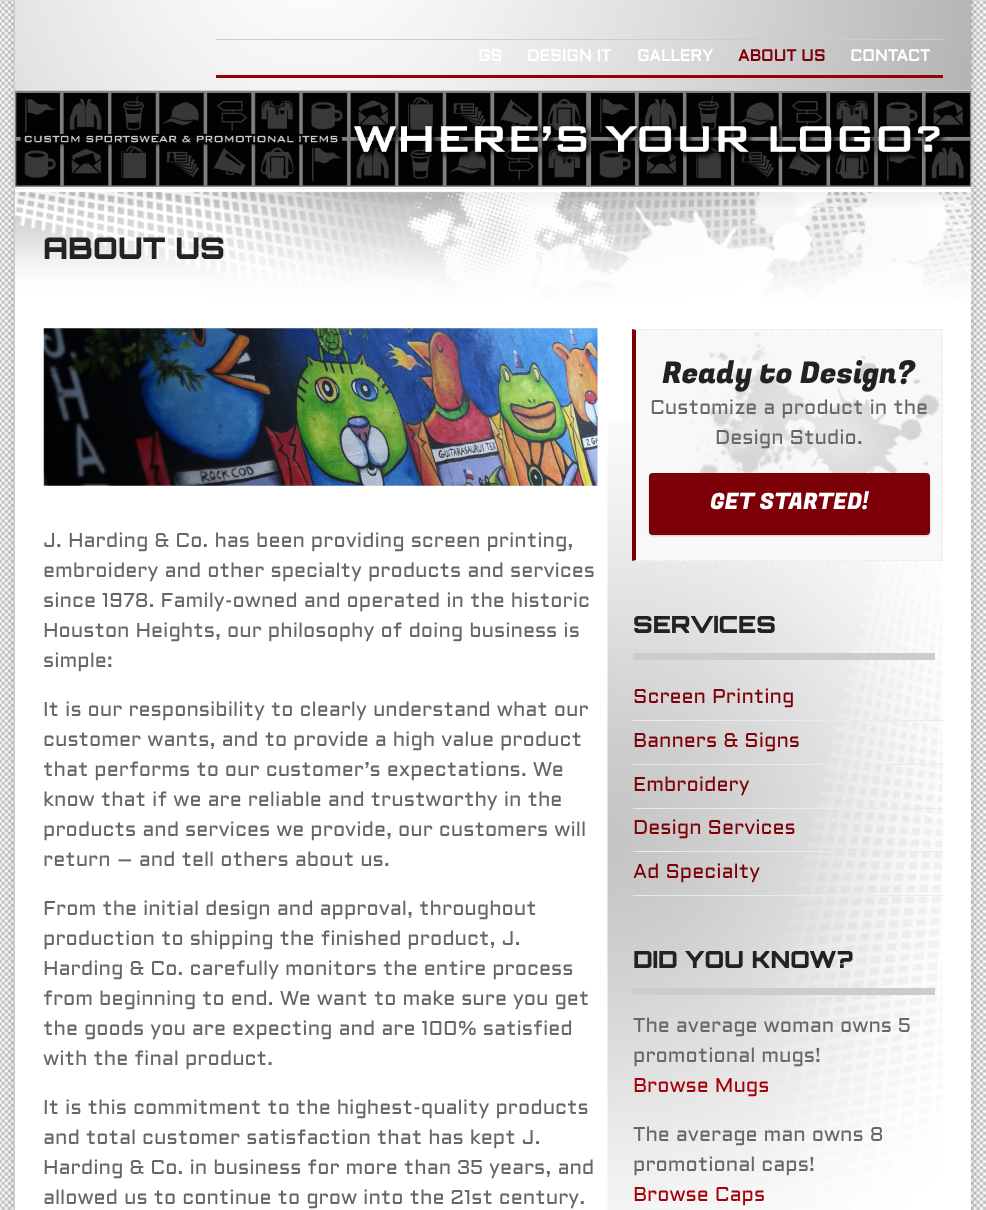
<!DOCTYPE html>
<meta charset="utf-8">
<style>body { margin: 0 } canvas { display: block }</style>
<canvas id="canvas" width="986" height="1210"></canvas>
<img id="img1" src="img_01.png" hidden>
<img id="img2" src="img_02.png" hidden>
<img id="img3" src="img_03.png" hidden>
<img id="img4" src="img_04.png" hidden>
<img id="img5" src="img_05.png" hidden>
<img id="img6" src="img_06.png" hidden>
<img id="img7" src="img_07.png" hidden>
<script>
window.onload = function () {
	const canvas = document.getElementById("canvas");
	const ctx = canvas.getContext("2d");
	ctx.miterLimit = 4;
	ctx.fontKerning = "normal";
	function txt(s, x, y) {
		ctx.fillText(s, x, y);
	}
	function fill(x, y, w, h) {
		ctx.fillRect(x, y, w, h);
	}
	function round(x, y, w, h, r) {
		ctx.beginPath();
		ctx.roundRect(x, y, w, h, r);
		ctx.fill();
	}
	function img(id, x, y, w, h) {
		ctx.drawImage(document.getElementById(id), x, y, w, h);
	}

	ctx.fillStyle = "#FFFFFF";
	fill(0, 0, 986, 1210);
	img("img1", 0, 0, 986, 1210);
	ctx.fillStyle = "rgba(100, 100, 100, 0.3)";
	ctx.filter = "blur(4px)";
	ctx.beginPath();
	ctx.rect(15, -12, 956, 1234);
	ctx.fill();
	ctx.filter = "none";
	ctx.fillStyle = "#FFFFFF";
	fill(15, 0, 956, 1210);
	img("img2", 15, 0, 957, 91);
	ctx.fillStyle = "#EAEAEA";
	fill(64, 90, 907, 1);
	ctx.fillStyle = "#CCCCCC";
	fill(216, 39, 727, 1);
	ctx.fillStyle = "#990000";
	fill(216, 75, 727, 3);
	img("img3", 15, 90, 957, 97);
	img("img4", 15, 188, 957, 115);
	ctx.fillStyle = "#EAEAEA";
	fill(15, 188, 956, 1);
	img("img5", 43, 328, 555, 158);
	img("img6", 607, 420, 336, 790);
	ctx.fillStyle = "#F8F8F8";
	fill(636, 329, 307, 232);
	img("img7", 691, 332, 249, 204);
	ctx.beginPath();
	ctx.moveTo(632.5, 329.5);
	ctx.lineTo(942.5, 329.5);
	ctx.strokeStyle = "#EAEAEA";
	ctx.lineWidth = 1.2;
	ctx.setLineDash([3.75, 2.5]);
	ctx.stroke();
	ctx.beginPath();
	ctx.moveTo(942, 329);
	ctx.lineTo(942, 561);
	ctx.setLineDash([3.75, 2.44]);
	ctx.stroke();
	ctx.beginPath();
	ctx.moveTo(632.5, 560.5);
	ctx.lineTo(942.5, 560.5);
	ctx.setLineDash([3.75, 2.5]);
	ctx.stroke();
	ctx.fillStyle = "#7D0008";
	ctx.beginPath();
	ctx.moveTo(632, 561);
	ctx.lineTo(632, 329);
	ctx.lineTo(636, 330);
	ctx.lineTo(636, 560);
	ctx.closePath();
	ctx.fill();
	ctx.fillStyle = "rgba(0, 0, 0, 0.2)";
	ctx.filter = "blur(1px)";
	ctx.beginPath();
	ctx.roundRect(649, 474, 281, 62, 4);
	ctx.fill();
	ctx.filter = "none";
	ctx.fillStyle = "#7D0008";
	round(649, 473, 281, 62, 4);
	ctx.fillStyle = "#CCCCCC";
	fill(633, 653, 302, 7);
	ctx.fillStyle = "#EAEAEA";
	fill(633, 720, 310, 1);
	fill(633, 764, 310, 1);
	fill(633, 808, 310, 1);
	fill(633, 851, 310, 1);
	fill(633, 895, 310, 1);
	ctx.fillStyle = "#CCCCCC";
	fill(633, 988, 302, 7);
	ctx.font = "bold 16.25px Aldrich";
	ctx.fillStyle = "#FFFFFF";
	txt("GS", 478, 61);
	txt("DESIGN IT", 527, 61);
	txt("GALLERY", 637, 61);
	ctx.fillStyle = "#7D0008";
	txt("ABOUT US", 738, 61);
	ctx.fillStyle = "#FFFFFF";
	txt("CONTACT", 850, 61);
	ctx.font = "900 30px Orbitron";
	ctx.fillStyle = "#222222";
	txt("ABOUT US", 43, 259);
	ctx.font = "20px Aldrich";
	ctx.fillStyle = "#666666";
	txt("J. Harding & Co. has been providing screen printing,", 43, 547);
	txt("embroidery and other specialty products and services", 43, 577);
	txt("since 1978. Family-owned and operated in the historic", 43, 607);
	txt("Houston Heights, our philosophy of doing business is", 43, 637);
	txt("simple:", 43, 667);
	txt("It is our responsibility to clearly understand what our", 43, 716);
	txt("customer wants, and to provide a high value product", 43, 746);
	txt("that performs to our customer’s expectations. We", 43, 776);
	txt("know that if we are reliable and trustworthy in the", 43, 806);
	txt("products and services we provide, our customers will", 43, 836);
	txt("return – and tell others about us.", 43, 866);
	txt("From the initial design and approval, throughout", 43, 915);
	txt("production to shipping the finished product, J.", 43, 945);
	txt("Harding & Co. carefully monitors the entire process", 43, 975);
	txt("from beginning to end. We want to make sure you get", 43, 1005);
	txt("the goods you are expecting and are 100% satisfied", 43, 1035);
	txt("with the final product.", 43, 1065);
	txt("It is this commitment to the highest-quality products", 43, 1114);
	txt("and total customer satisfaction that has kept J.", 43, 1144);
	txt("Harding & Co. in business for more than 35 years, and", 43, 1174);
	txt("allowed us to continue to grow into the 21st century.", 43, 1204);
	ctx.font = "30px Fugaz One";
	ctx.fillStyle = "#222222";
	txt("Ready to Design?", 662, 383);
	ctx.font = "20px Aldrich";
	ctx.fillStyle = "#666666";
	txt("Customize a product in the", 650, 414);
	txt("Design Studio.", 715, 444);
	ctx.font = "22.5px Fugaz One";
	ctx.fillStyle = "#FFFFFF";
	txt("GET STARTED!", 710, 509);
	ctx.font = "900 23.75px Orbitron";
	ctx.fillStyle = "#222222";
	txt("SERVICES", 633, 633);
	ctx.font = "20px Aldrich";
	ctx.fillStyle = "#7D0008";
	txt("Screen Printing", 633, 703);
	txt("Banners & Signs", 633, 747);
	txt("Embroidery", 633, 791);
	txt("Design Services", 633, 834);
	txt("Ad Specialty", 633, 878);
	ctx.font = "900 23.75px Orbitron";
	ctx.fillStyle = "#222222";
	txt("DID YOU KNOW?", 633, 968);
	ctx.font = "20px Aldrich";
	ctx.fillStyle = "#666666";
	txt("The average woman owns 5", 633, 1032);
	txt("promotional mugs!", 633, 1062);
	ctx.fillStyle = "#A7000B";
	txt("Browse Mugs", 633, 1092);
	ctx.fillStyle = "#666666";
	txt("The average man owns 8", 633, 1141);
	txt("promotional caps!", 633, 1171);
	ctx.fillStyle = "#A7000B";
	txt("Browse Caps", 633, 1201);
};
</script>
